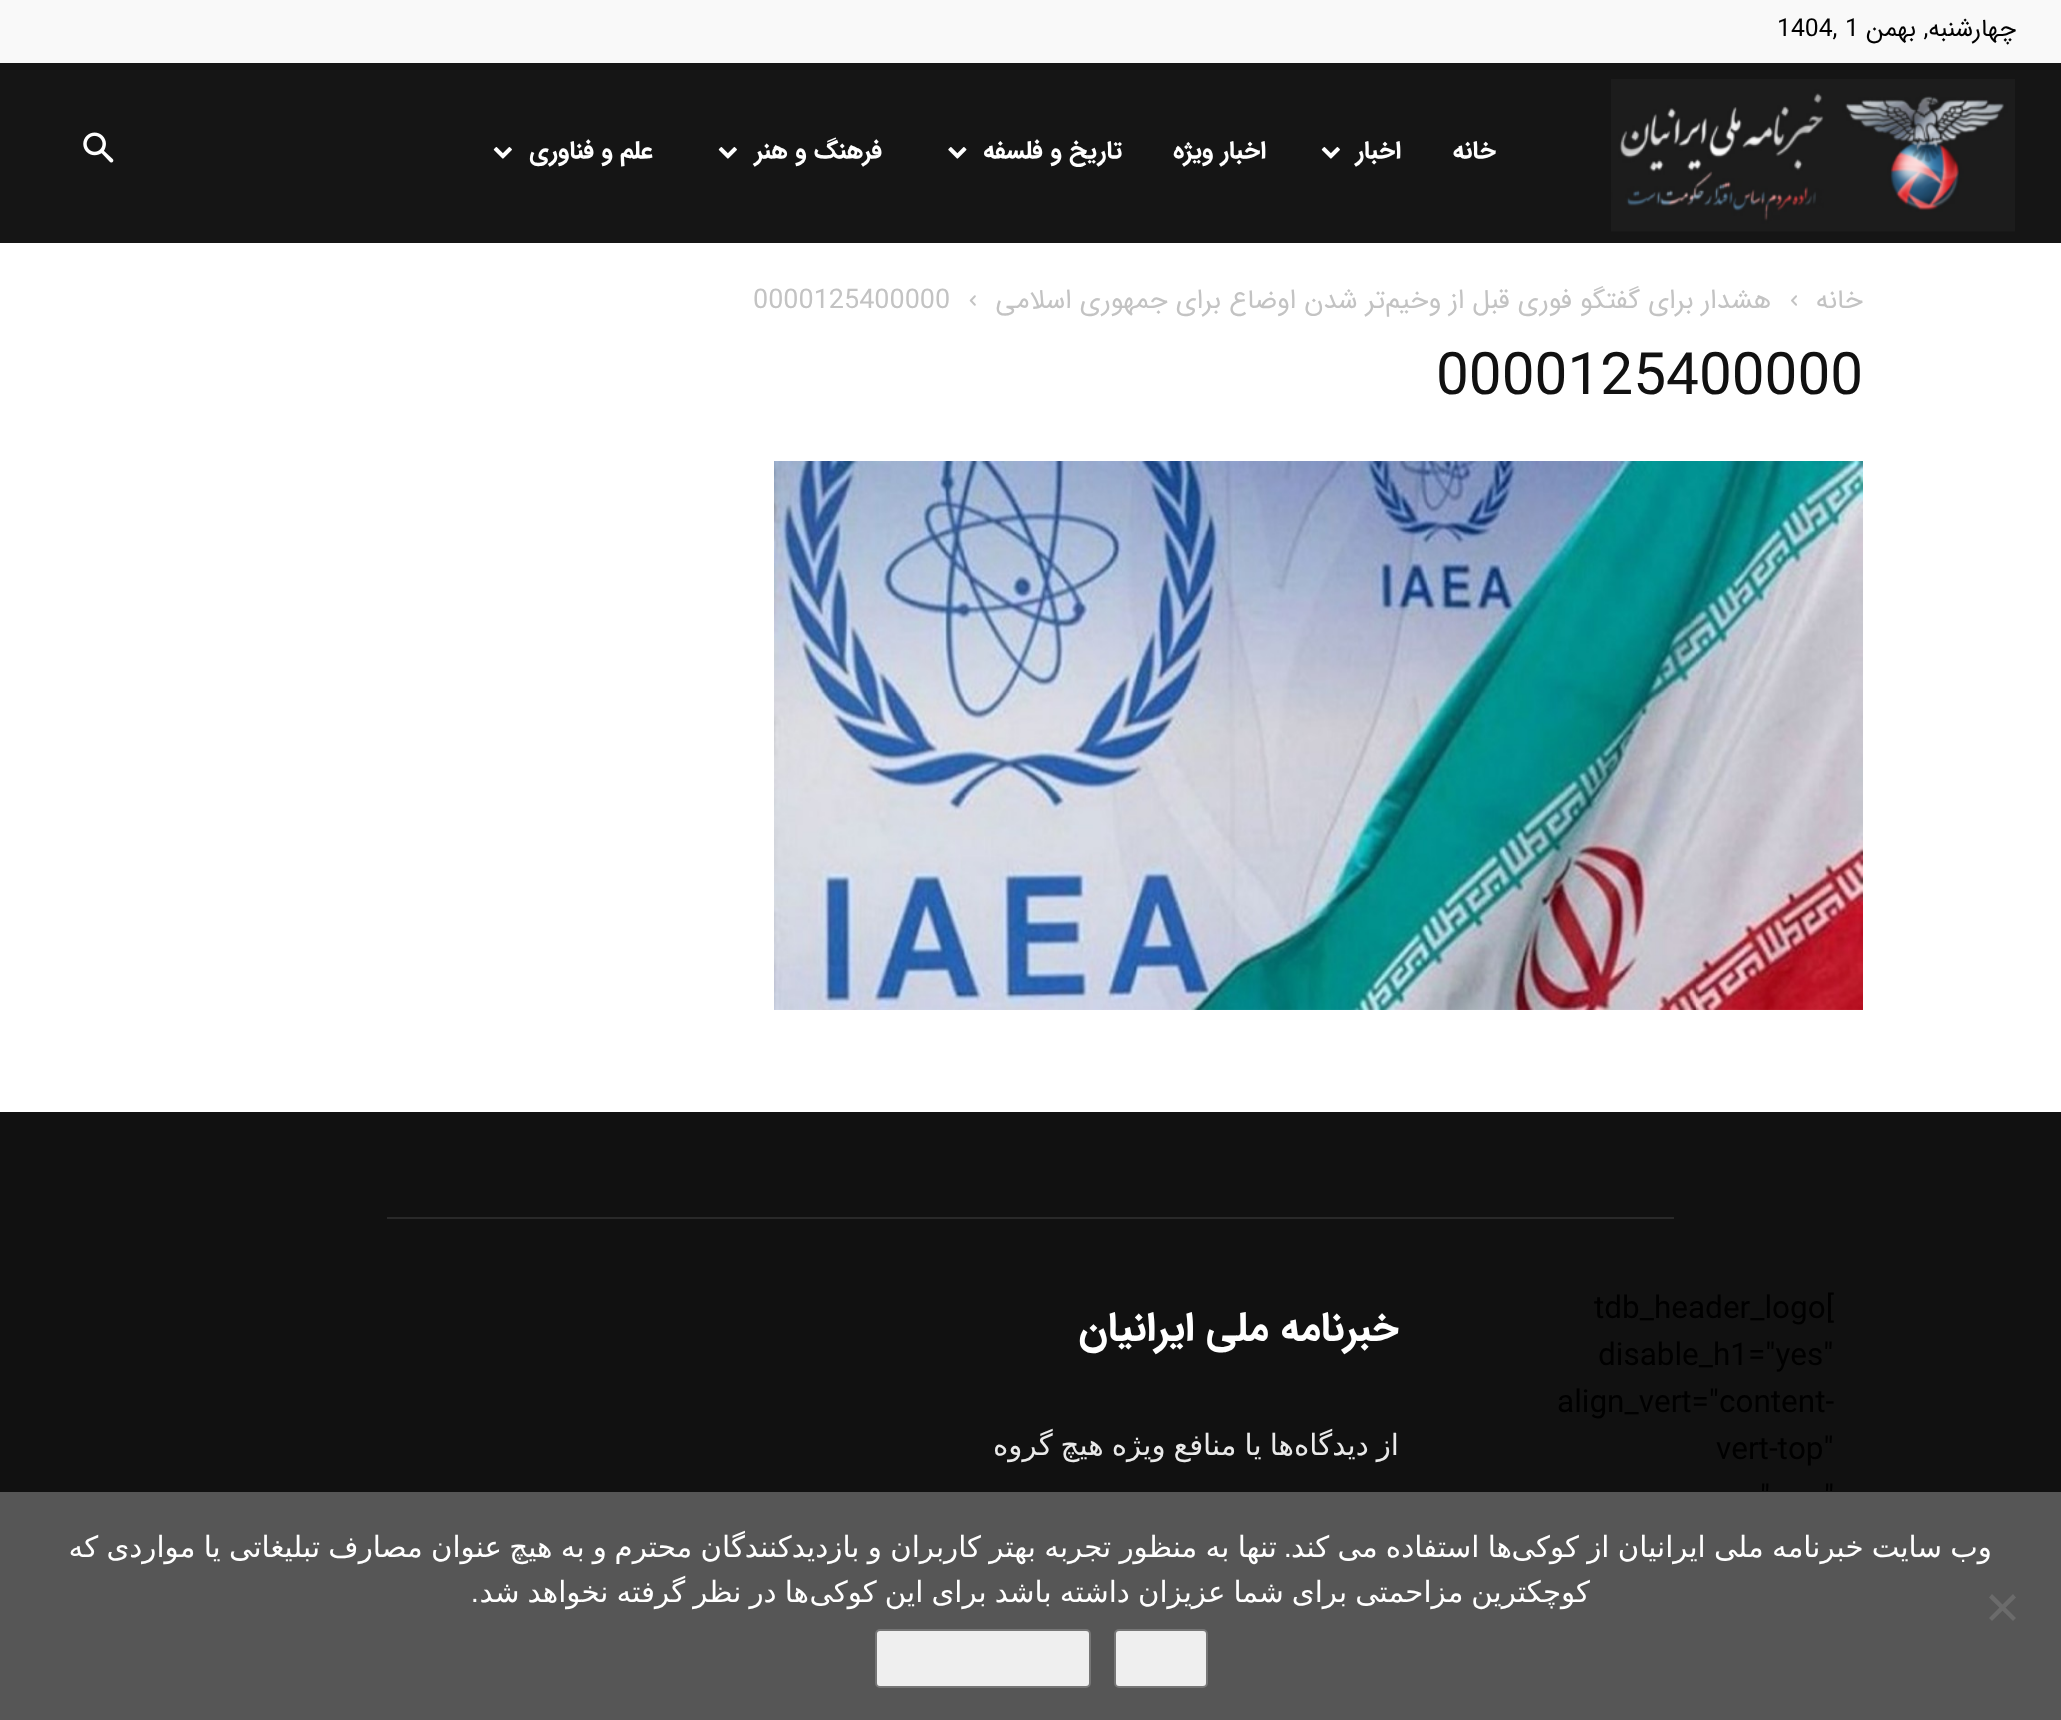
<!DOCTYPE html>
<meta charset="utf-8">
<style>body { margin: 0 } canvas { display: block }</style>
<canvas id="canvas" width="2061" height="1720"></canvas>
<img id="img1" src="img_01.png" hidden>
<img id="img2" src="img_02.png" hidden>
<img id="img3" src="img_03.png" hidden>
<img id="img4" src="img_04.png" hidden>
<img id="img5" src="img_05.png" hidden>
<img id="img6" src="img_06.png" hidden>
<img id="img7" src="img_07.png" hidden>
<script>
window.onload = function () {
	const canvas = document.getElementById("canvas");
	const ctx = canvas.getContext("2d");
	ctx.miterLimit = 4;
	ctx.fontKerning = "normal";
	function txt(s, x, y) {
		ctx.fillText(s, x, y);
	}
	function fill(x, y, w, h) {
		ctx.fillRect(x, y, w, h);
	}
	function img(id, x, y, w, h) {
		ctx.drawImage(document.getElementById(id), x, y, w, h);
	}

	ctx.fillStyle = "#FFFFFF";
	fill(0, 0, 2061, 1720);
	ctx.fillStyle = "#F9F9F9";
	fill(0, 0, 2061, 63);
	ctx.fillStyle = "#151515";
	fill(0, 63, 2061, 180);
	img("img1", 1611, 79, 404, 153);
	img("img2", 1321, 147, 19, 12);
	img("img3", 948, 147, 19, 12);
	img("img2", 718, 147, 19, 12);
	img("img2", 493, 147, 19, 12);
	img("img4", 83, 132, 31, 31);
	img("img5", 1791, 295, 6, 11);
	img("img6", 969, 295, 7, 11);
	img("img7", 774, 461, 1089, 549);
	ctx.fillStyle = "#111111";
	fill(0, 1112, 2061, 608);
	ctx.fillStyle = "#292929";
	fill(387, 1217, 1287, 2);
	ctx.fillStyle = "rgba(104, 104, 104, 0.8)";
	fill(0, 1492, 2061, 228);
	ctx.fillStyle = "#6B6B6B";
	ctx.beginPath();
	ctx.moveTo(2013, 1594);
	ctx.lineTo(2016, 1597.5);
	ctx.lineTo(1992, 1621);
	ctx.lineTo(1989, 1618);
	ctx.closePath();
	ctx.fill();
	ctx.beginPath();
	ctx.moveTo(1989, 1597.5);
	ctx.lineTo(1992, 1594);
	ctx.lineTo(2016, 1618);
	ctx.lineTo(2013, 1621);
	ctx.closePath();
	ctx.fill();
	ctx.fillStyle = "#EFEFEF";
	ctx.beginPath();
	ctx.roundRect(1115, 1630, 92, 57, 4);
	ctx.fill();
	ctx.strokeStyle = "#767676";
	ctx.lineWidth = 2;
	ctx.stroke();
	ctx.beginPath();
	ctx.roundRect(876, 1630, 214, 57, 4);
	ctx.fill();
	ctx.stroke();
	ctx.direction = "rtl";
	ctx.font = "24.75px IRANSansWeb";
	ctx.fillStyle = "#000000";
	txt("چهارشنبه, بهمن", 2016, 36);
	ctx.direction = "ltr";
	txt("1404, 1", 1777, 36);
	ctx.direction = "rtl";
	ctx.font = "bold 24.75px IRANSansWeb";
	ctx.fillStyle = "#FFFFFF";
	txt("خانه", 1496, 158);
	txt("اخبار", 1401, 158);
	txt("اخبار ویژه", 1266, 158);
	txt("تاریخ و فلسفه", 1122, 158);
	txt("فرهنگ و هنر", 882, 158);
	txt("علم و فناوری", 653, 158);
	ctx.font = "27px IRANSansWeb";
	ctx.fillStyle = "#C3C3C3";
	txt("خانه", 1863, 308);
	txt("هشدار برای گفتگو فوری قبل از وخیم‌تر شدن اوضاع برای جمهوری اسلامی", 1771, 308);
	ctx.direction = "ltr";
	txt("0000125400000", 753, 308);
	ctx.font = "58.5px IRANSansWeb";
	ctx.fillStyle = "#111111";
	txt("0000125400000", 1436, 394);
	ctx.font = "31.5px IRANSansWeb";
	ctx.fillStyle = "#000000";
	txt("tdb_header_logo[", 1594, 1318);
	txt("disable_h1=\"yes\"", 1598, 1365);
	txt("align_vert=\"content-", 1557, 1412);
	txt("vert-top\"", 1716, 1459);
	txt("\"", 1824, 1507);
	txt("\"", 1760, 1507);
	ctx.direction = "rtl";
	ctx.font = "bold 40.5px IRANSansWeb";
	ctx.fillStyle = "#FFFFFF";
	txt("خبرنامه ملی ایرانیان", 1399, 1340);
	ctx.wordSpacing = "-1.25px";
	ctx.font = "29.25px DejaVu Sans";
	ctx.fillStyle = "#EAEAEA";
	txt("ها یا منافع ویژه هیچ گروه", 1294, 1455);
	txt("از دیدگاه", 1399, 1455);
	ctx.wordSpacing = "-1px";
	ctx.fillStyle = "#FFFFFF";
	txt("وب سایت خبرنامه ملی ایرانیان از کوکی", 1992, 1557);
	txt("ها استفاده می کند", 1512, 1557);
	ctx.wordSpacing = "0px";
	ctx.font = "29.25px Liberation Sans";
	txt(".", 1292, 1557);
	ctx.wordSpacing = "-1px";
	ctx.font = "29.25px DejaVu Sans";
	txt("تنها به منظور تجربه بهتر کاربران و بازدیدکنندگان محترم", 1277, 1557);
	txt("و به هیچ", 607, 1557);
	txt("عنوان مصارف تبلیغاتی یا مواردی که", 502, 1557);
	ctx.wordSpacing = "-1.25px";
	txt("ها در نظر گرفته نخواهد شد", 809, 1602);
	txt("کوچکترین مزاحمتی برای شما عزیزان داشته باشد برای این کوکی", 1590, 1602);
	ctx.wordSpacing = "0px";
	ctx.font = "29.25px Liberation Sans";
	txt(".", 479, 1602);
};
</script>
